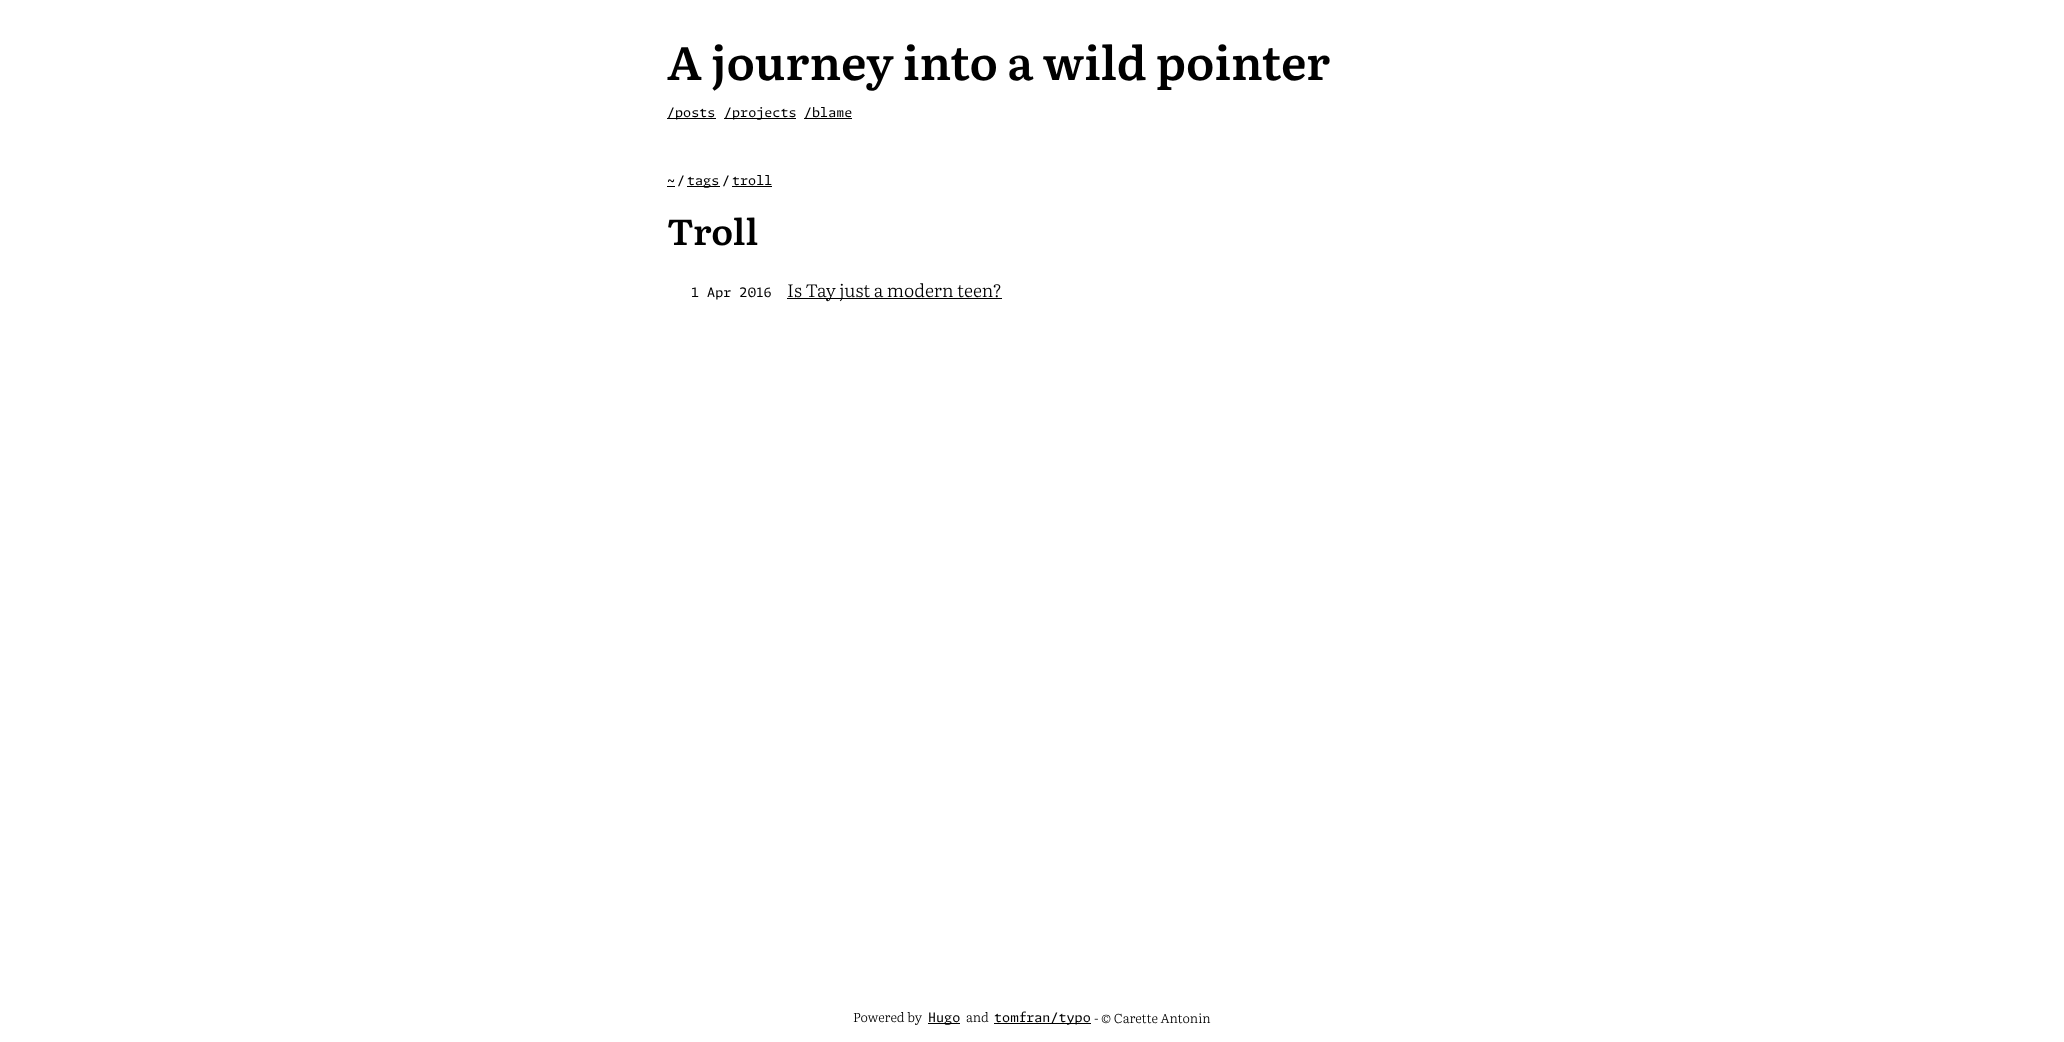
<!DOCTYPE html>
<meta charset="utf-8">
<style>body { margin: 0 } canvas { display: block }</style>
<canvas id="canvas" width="2064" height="1042"></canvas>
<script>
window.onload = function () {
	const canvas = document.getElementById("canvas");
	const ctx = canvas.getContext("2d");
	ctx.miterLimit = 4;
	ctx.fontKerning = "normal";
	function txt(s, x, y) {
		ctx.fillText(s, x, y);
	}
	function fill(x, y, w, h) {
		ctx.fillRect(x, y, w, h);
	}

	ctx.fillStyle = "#FFFFFF";
	fill(0, 0, 2064, 1042);
	ctx.fillStyle = "#000000";
	fill(667, 118, 49, 1);
	fill(724, 118, 72, 1);
	fill(804, 118, 48, 1);
	fill(667, 186, 8, 1);
	fill(687, 186, 33, 1);
	fill(732, 186, 40, 1);
	fill(787, 298, 215, 1);
	fill(928, 1023, 32, 1);
	fill(994, 1023, 97, 1);
	ctx.font = "600 46.75px Literata";
	txt("A journey into a wild pointer", 667, 80);
	ctx.font = "13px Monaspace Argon";
	txt("/posts", 667, 117);
	txt("/projects", 724, 117);
	txt("/blame", 804, 117);
	txt("~", 667, 185);
	txt("/", 677, 185);
	txt("tags", 687, 185);
	txt("/", 722, 185);
	txt("troll", 732, 185);
	ctx.font = "600 36px Literata";
	txt("Troll", 667, 245);
	ctx.font = "13px Monaspace Argon";
	txt("1 Apr 2016", 691, 297);
	ctx.font = "300 18px Literata";
	txt("Is Tay just a modern teen?", 787, 297);
	ctx.font = "300 13px Literata";
	txt("Powered by", 853, 1022);
	ctx.font = "13px Monaspace Argon";
	txt("Hugo", 928, 1022);
	ctx.font = "300 13px Literata";
	txt("and", 966, 1022);
	ctx.font = "13px Monaspace Argon";
	txt("tomfran/typo", 994, 1022);
	ctx.font = "300 13px Literata";
	txt("- © Carette Antonin", 1094, 1023);
};
</script>
